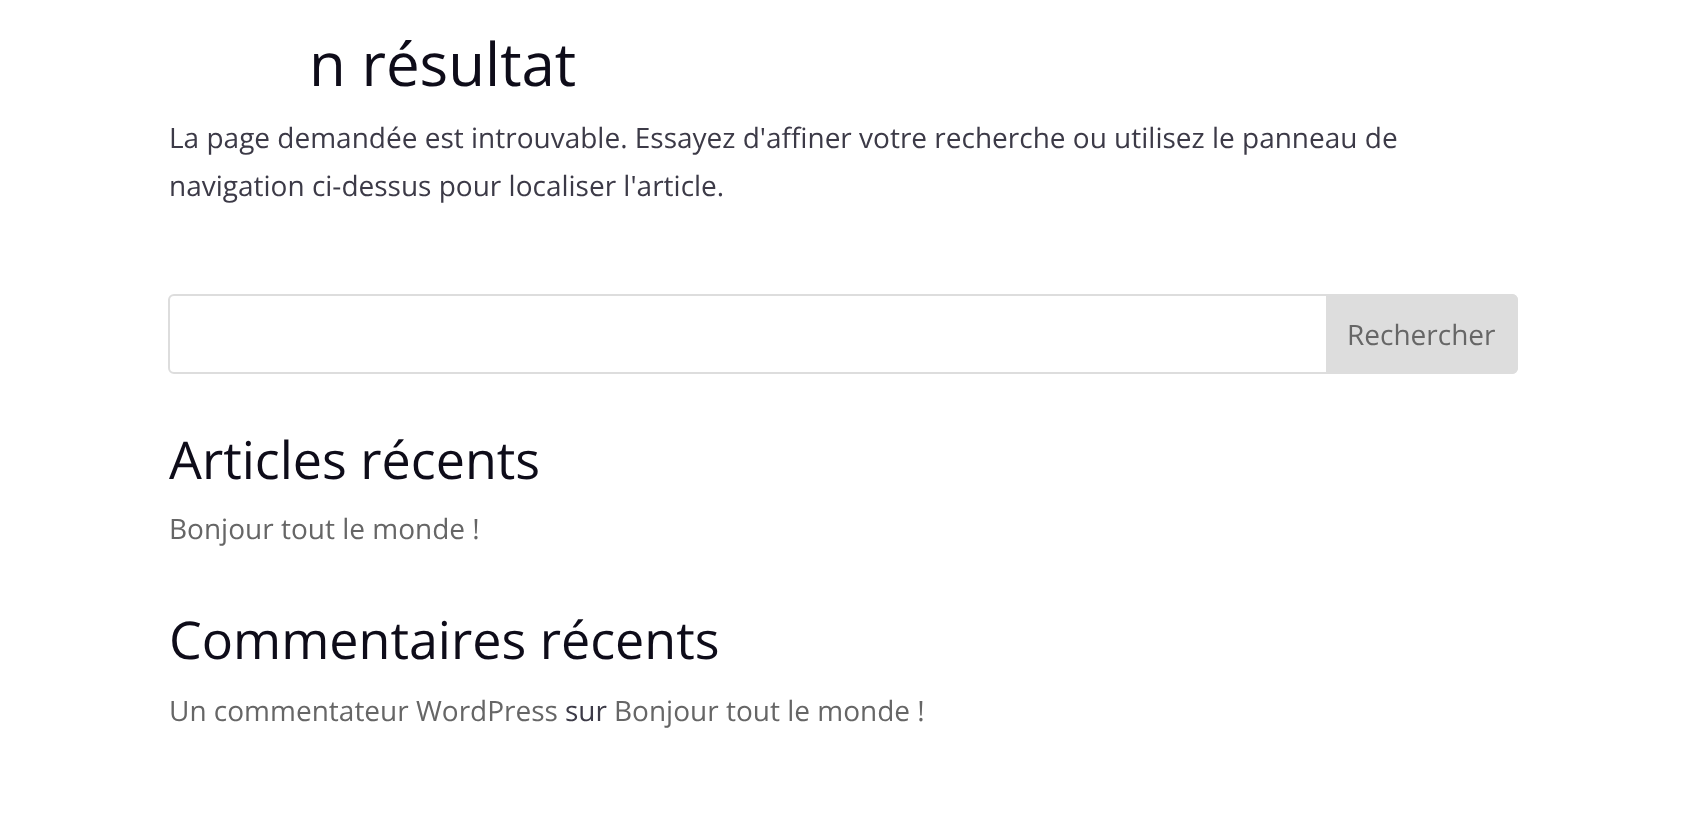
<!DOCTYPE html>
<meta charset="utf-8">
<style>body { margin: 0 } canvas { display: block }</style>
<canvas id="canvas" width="1685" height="825"></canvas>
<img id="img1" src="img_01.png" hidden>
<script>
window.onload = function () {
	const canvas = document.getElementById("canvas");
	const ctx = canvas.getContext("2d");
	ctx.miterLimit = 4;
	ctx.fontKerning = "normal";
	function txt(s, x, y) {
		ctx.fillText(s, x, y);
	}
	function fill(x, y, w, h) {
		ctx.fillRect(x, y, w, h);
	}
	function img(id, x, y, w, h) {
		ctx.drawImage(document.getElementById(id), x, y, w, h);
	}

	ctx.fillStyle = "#FFFFFF";
	fill(0, 0, 1685, 825);
	ctx.beginPath();
	ctx.roundRect(169, 295, 1348, 78, 5);
	ctx.strokeStyle = "#DDDDDD";
	ctx.lineWidth = 2;
	ctx.stroke();
	ctx.fillStyle = "#DDDDDD";
	ctx.beginPath();
	ctx.roundRect(1327, 295, 190, 78, [0, 5, 5, 0]);
	ctx.fill();
	ctx.stroke();
	img("img1", 168, 46, 116, 41);
	ctx.font = "60px Open Sans";
	ctx.fillStyle = "#0E0C19";
	txt("n résultat", 309, 86);
	ctx.font = "28px Open Sans";
	ctx.fillStyle = "#3C3A47";
	txt("La page demandée est introuvable. Essayez d'affiner votre recherche ou utilisez le panneau de", 169, 148);
	txt("navigation ci-dessus pour localiser l'article.", 169, 196);
	ctx.fillStyle = "#666666";
	txt("Rechercher", 1347, 345);
	ctx.font = "52px Open Sans";
	ctx.fillStyle = "#0E0C19";
	txt("Articles récents", 169, 479);
	ctx.font = "28px Open Sans";
	ctx.fillStyle = "#666666";
	txt("Bonjour tout le monde !", 169, 539);
	ctx.font = "52px Open Sans";
	ctx.fillStyle = "#0E0C19";
	txt("Commentaires récents", 169, 659);
	ctx.font = "28px Open Sans";
	ctx.fillStyle = "#666666";
	txt("Un commentateur WordPress", 169, 721);
	ctx.fillStyle = "#3C3A47";
	txt("sur", 565, 721);
	ctx.fillStyle = "#666666";
	txt("Bonjour tout le monde !", 614, 721);
};
</script>
